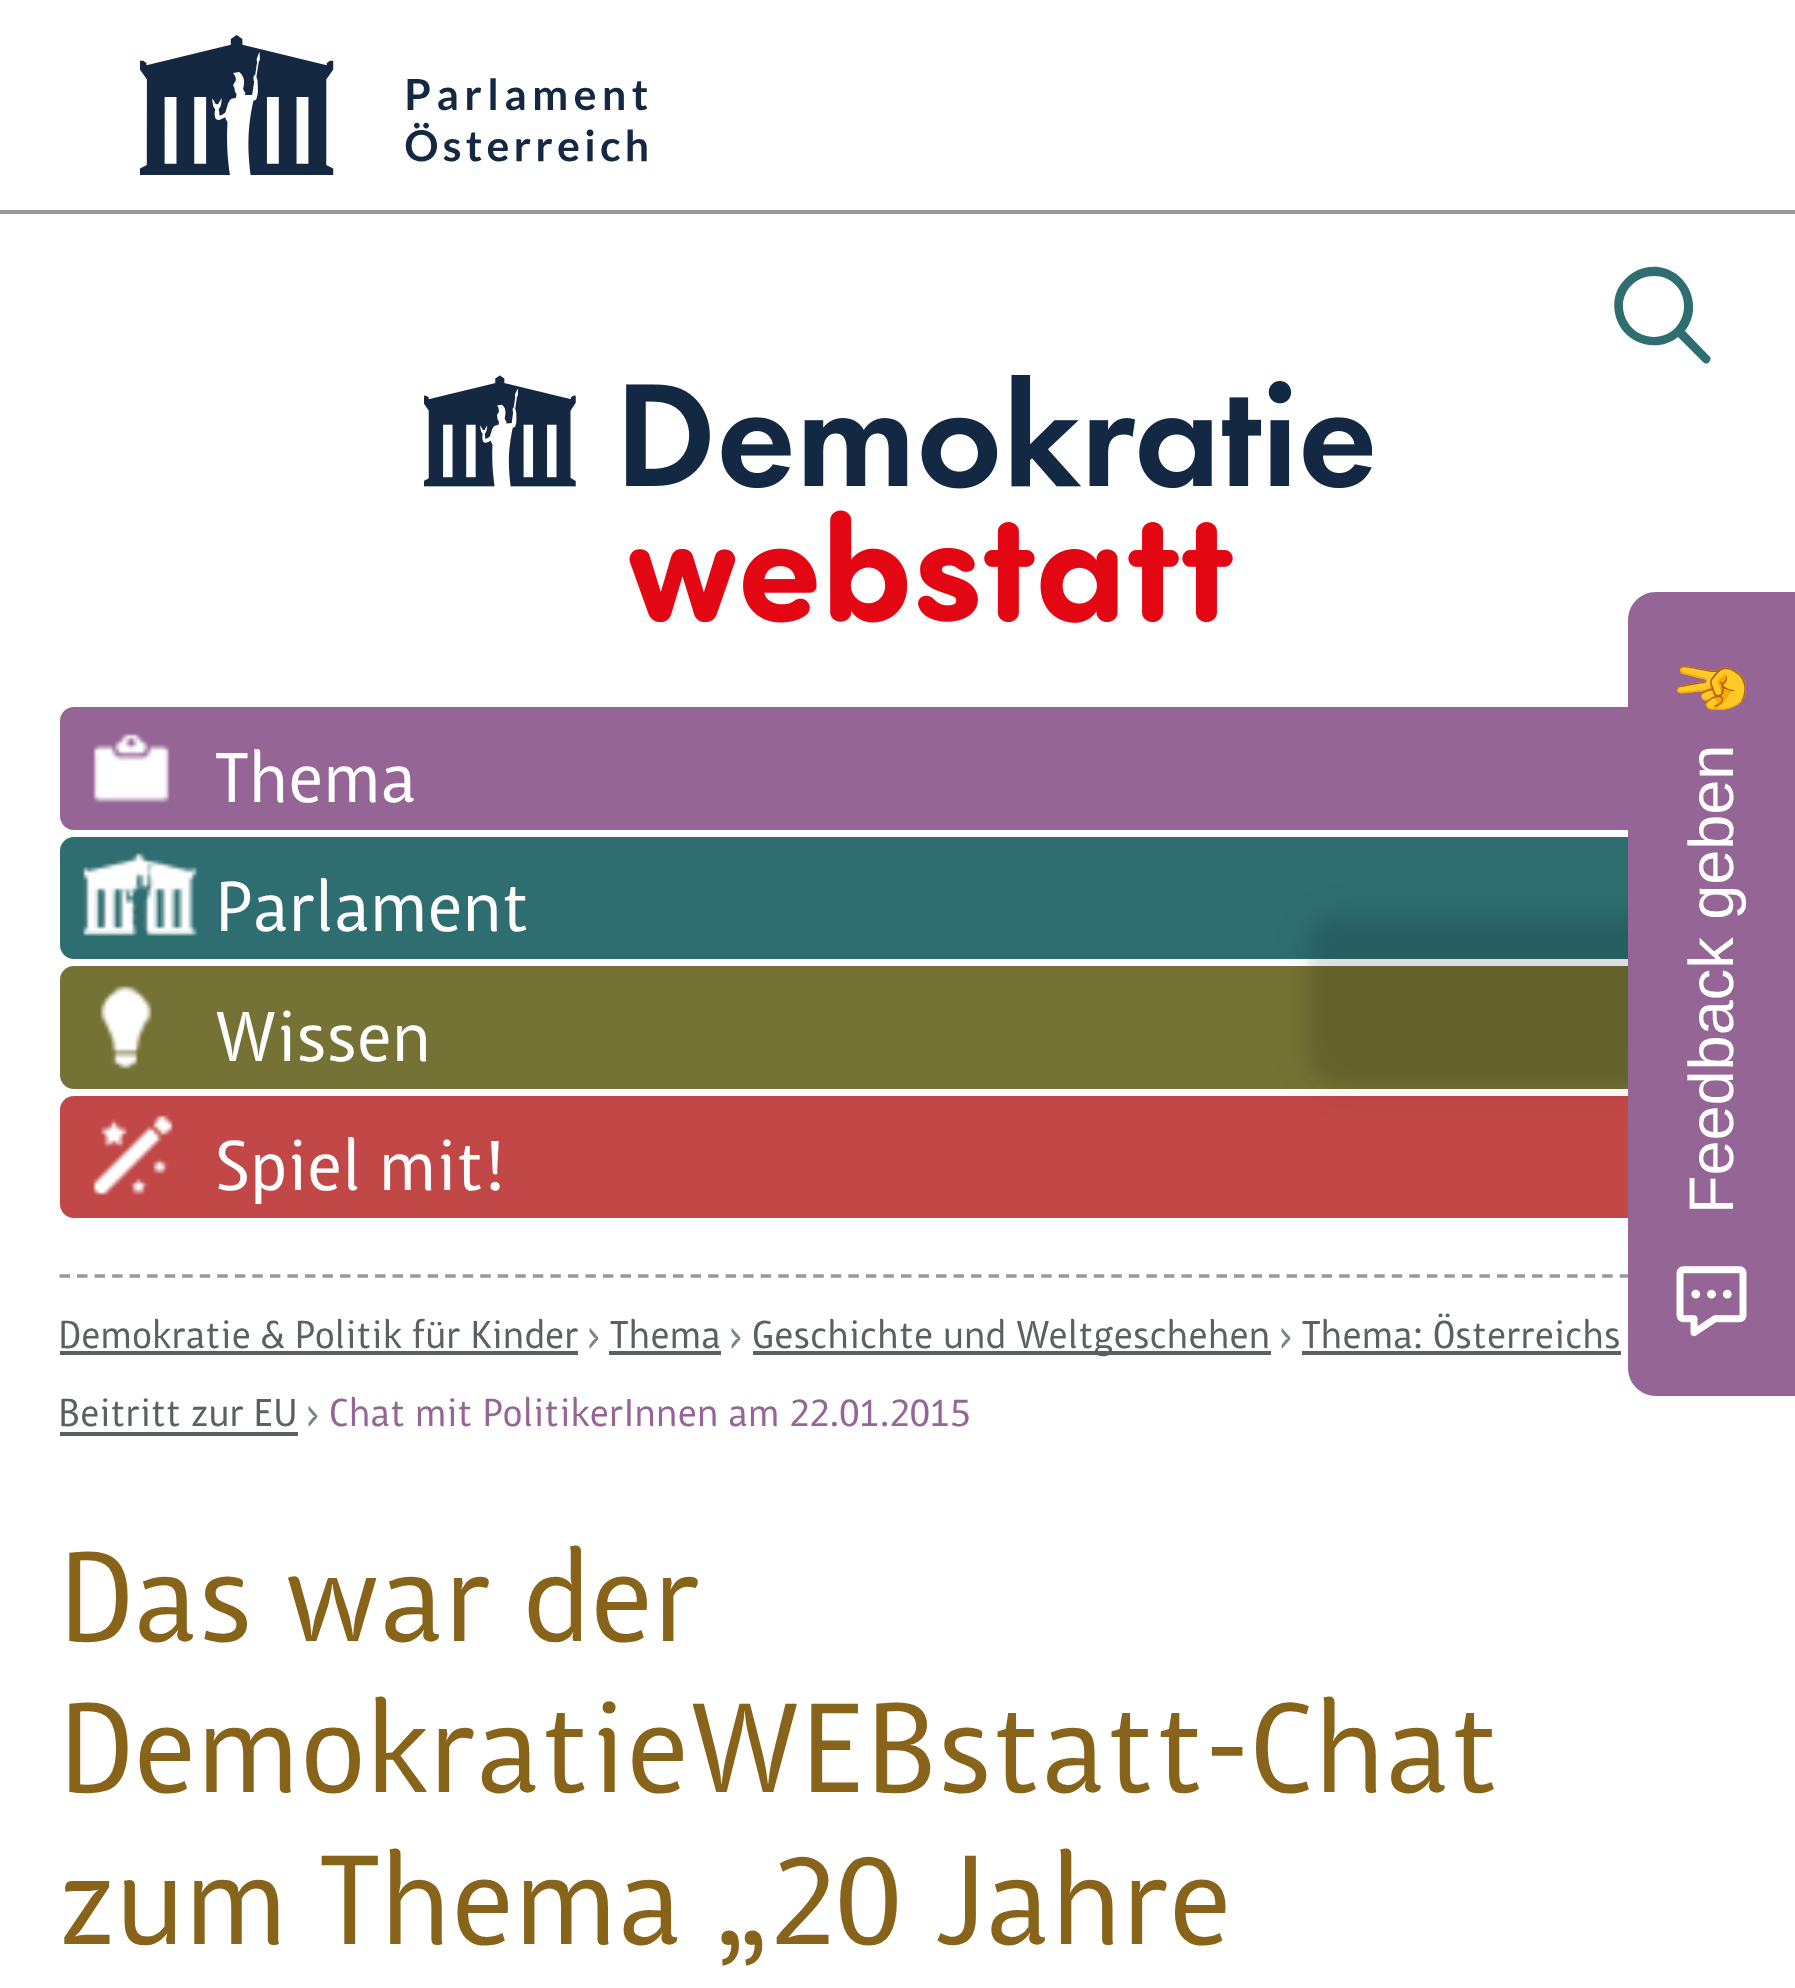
<!DOCTYPE html>
<meta charset="utf-8">
<style>body { margin: 0 } canvas { display: block }</style>
<canvas id="canvas" width="1795" height="1988"></canvas>
<img id="img1" src="img_01.png" hidden>
<img id="img2" src="img_02.png" hidden>
<img id="img3" src="img_03.png" hidden>
<img id="img4" src="img_04.png" hidden>
<img id="img5" src="img_05.png" hidden>
<img id="img6" src="img_06.png" hidden>
<img id="img7" src="img_07.png" hidden>
<script>
window.onload = function () {
	const canvas = document.getElementById("canvas");
	const ctx = canvas.getContext("2d");
	ctx.miterLimit = 4;
	ctx.fontKerning = "normal";
	function txt(s, x, y) {
		ctx.fillText(s, x, y);
	}
	function fill(x, y, w, h) {
		ctx.fillRect(x, y, w, h);
	}
	function round(x, y, w, h, r) {
		ctx.beginPath();
		ctx.roundRect(x, y, w, h, r);
		ctx.fill();
	}
	function img(id, x, y, w, h) {
		ctx.drawImage(document.getElementById(id), x, y, w, h);
	}

	ctx.fillStyle = "#FFFFFF";
	fill(0, 0, 1795, 1988);
	ctx.fillStyle = "#999999";
	fill(0, 210, 1795, 4);
	img("img1", 140, 35, 508, 140);
	ctx.fillStyle = "#2E6D70";
	ctx.beginPath();
	ctx.moveTo(1685, 331);
	ctx.bezierCurveTo(1709, 300, 1677, 254, 1638, 270);
	ctx.bezierCurveTo(1629, 274, 1621, 282, 1617, 291);
	ctx.bezierCurveTo(1612, 303, 1614, 317, 1621, 328);
	ctx.bezierCurveTo(1634, 347, 1661, 351, 1678, 337);
	ctx.lineTo(1703, 362);
	ctx.bezierCurveTo(1705, 364, 1708, 364, 1709, 362);
	ctx.bezierCurveTo(1711, 360, 1711, 357, 1709, 356);
	ctx.closePath();
	ctx.moveTo(1654, 337);
	ctx.bezierCurveTo(1637, 337, 1623, 323, 1623, 306);
	ctx.bezierCurveTo(1623, 289, 1637, 276, 1654, 276);
	ctx.bezierCurveTo(1671, 276, 1684, 289, 1684, 306);
	ctx.bezierCurveTo(1684, 323, 1671, 337, 1654, 337);
	ctx.closePath();
	ctx.fill("evenodd");
	img("img2", 424, 375, 948, 248);
	ctx.fillStyle = "#956595";
	round(60, 707, 1676, 123, 14);
	img("img3", 93, 733, 77, 70);
	ctx.fillStyle = "#2E6D70";
	round(60, 837, 1676, 122, 14);
	img("img4", 82, 852, 116, 84);
	ctx.fillStyle = "#747234";
	round(60, 966, 1676, 123, 14);
	img("img5", 100, 985, 52, 84);
	ctx.fillStyle = "#C24747";
	round(60, 1096, 1676, 122, 14);
	img("img6", 93, 1115, 80, 80);
	ctx.beginPath();
	ctx.moveTo(59.5, 1276);
	ctx.lineTo(1736, 1276);
	ctx.strokeStyle = "#999999";
	ctx.lineWidth = 3.5;
	ctx.setLineDash([10.5, 7.03]);
	ctx.stroke();
	ctx.fillStyle = "#5C6062";
	fill(60, 1351, 518, 4);
	fill(609, 1351, 112, 4);
	fill(753, 1351, 518, 4);
	fill(1302, 1351, 319, 4);
	fill(60, 1432, 238, 4);
	ctx.fillStyle = "rgba(0, 0, 0, 0.06)";
	ctx.filter = "blur(21px)";
	ctx.beginPath();
	ctx.roundRect(1309, 917, 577, 168, 28);
	ctx.fill();
	ctx.filter = "none";
	ctx.fillStyle = "rgba(0, 0, 0, 0.08)";
	ctx.filter = "blur(7px)";
	ctx.beginPath();
	ctx.roundRect(1309, 917, 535, 168, 28);
	ctx.fill();
	ctx.filter = "none";
	ctx.fillStyle = "#956595";
	ctx.beginPath();
	ctx.moveTo(1628, 1368);
	ctx.lineTo(1628, 620);
	ctx.bezierCurveTo(1628, 605, 1640, 592, 1656, 592);
	ctx.lineTo(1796, 592);
	ctx.lineTo(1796, 1396);
	ctx.lineTo(1656, 1396);
	ctx.bezierCurveTo(1640, 1396, 1628, 1383, 1628, 1368);
	ctx.closePath();
	ctx.fill();
	img("img7", 1676, 1266, 71, 71);
	ctx.font = "70px 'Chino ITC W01'";
	ctx.fillStyle = "#FFFFFF";
	txt("Thema", 215, 802);
	txt("Parlament", 215, 931);
	txt("Wissen", 215, 1061);
	txt("Spiel mit!", 215, 1190);
	ctx.font = "38.5px 'Chino ITC W01'";
	ctx.fillStyle = "#5C6062";
	txt("Demokratie & Politik für Kinder", 58, 1348);
	ctx.fillStyle = "#76858C";
	txt("›", 588, 1348);
	ctx.fillStyle = "#5C6062";
	txt("Thema", 610, 1348);
	ctx.fillStyle = "#76858C";
	txt("›", 730, 1348);
	ctx.fillStyle = "#5C6062";
	txt("Geschichte und Weltgeschehen", 752, 1348);
	ctx.fillStyle = "#76858C";
	txt("›", 1280, 1348);
	ctx.fillStyle = "#5C6062";
	txt("Thema: Österreichs", 1302, 1348);
	txt("Beitritt zur EU", 58, 1426);
	ctx.fillStyle = "#76858C";
	txt("›", 307, 1426);
	ctx.fillStyle = "#956595";
	txt("Chat mit PolitikerInnen am 22.01.2015", 329, 1426);
	ctx.font = "126px 'Chino ITC W01'";
	ctx.fillStyle = "#88641B";
	txt("Das war der", 58, 1641);
	txt("DemokratieWEBstatt-Chat", 58, 1792);
	txt("zum Thema „20 Jahre", 58, 1944);
	ctx.font = "63px Noto Color Emoji";
	ctx.fillStyle = "#FFFFFF";
	ctx.save();
	ctx.translate(1733, 727);
	ctx.rotate(-90 * Math.PI / 180);
	ctx.fillText("✌️", 0, 0);
	ctx.restore();
	ctx.font = "63px Liberation Sans";
	ctx.save();
	ctx.translate(1733, 1214);
	ctx.rotate(-90 * Math.PI / 180);
	ctx.fillText("Feedback geben", 0, 0);
	ctx.restore();
};
</script>
